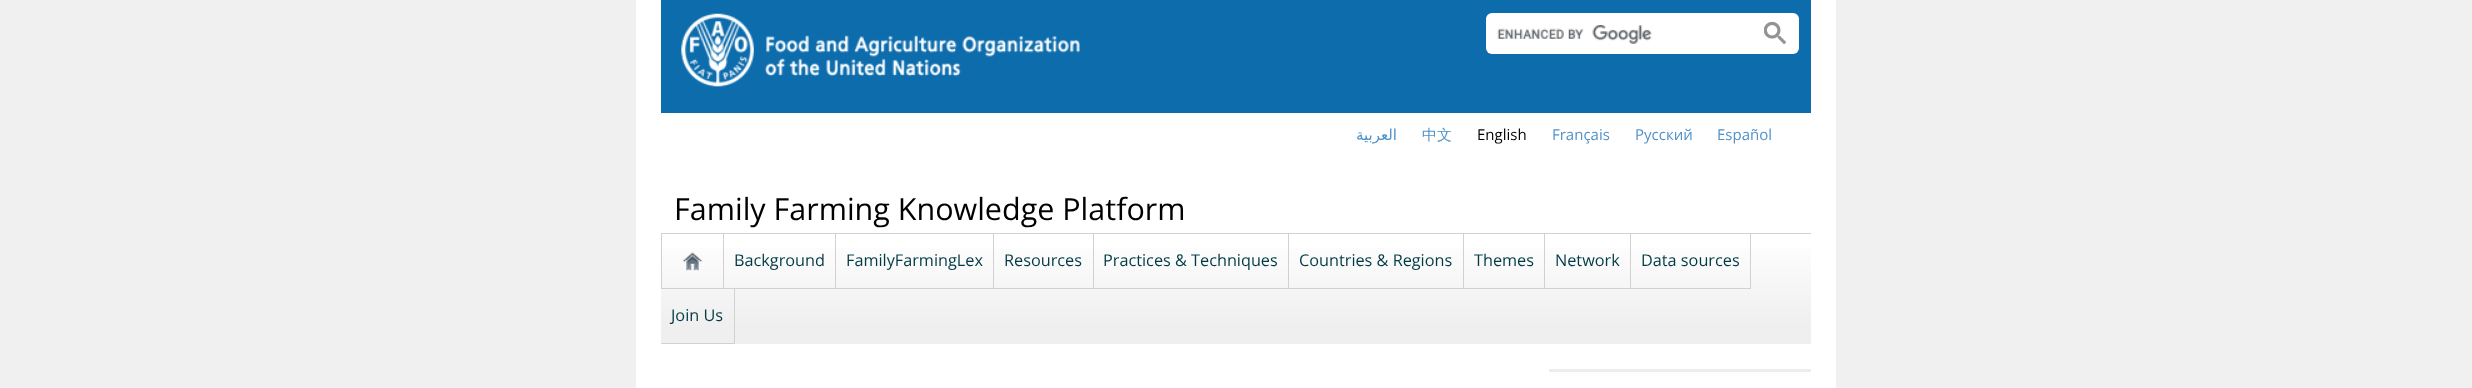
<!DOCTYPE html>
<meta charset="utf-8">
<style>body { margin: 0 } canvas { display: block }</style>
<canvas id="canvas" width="2472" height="388"></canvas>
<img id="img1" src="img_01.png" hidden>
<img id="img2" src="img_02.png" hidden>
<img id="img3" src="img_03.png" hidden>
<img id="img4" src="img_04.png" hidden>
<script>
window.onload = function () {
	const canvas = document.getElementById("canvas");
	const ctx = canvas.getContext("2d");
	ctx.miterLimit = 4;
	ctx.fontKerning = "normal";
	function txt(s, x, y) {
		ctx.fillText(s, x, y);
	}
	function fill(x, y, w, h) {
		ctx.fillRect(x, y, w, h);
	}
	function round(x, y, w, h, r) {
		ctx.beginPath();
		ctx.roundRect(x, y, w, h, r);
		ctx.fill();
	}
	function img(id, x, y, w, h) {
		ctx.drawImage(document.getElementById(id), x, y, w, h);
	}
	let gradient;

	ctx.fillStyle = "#F0F0F0";
	fill(0, 0, 2472, 388);
	ctx.fillStyle = "#FFFFFF";
	fill(636, 0, 1200, 388);
	ctx.fillStyle = "#0D6CAC";
	fill(661, 0, 1150, 113);
	img("img1", 681, 13, 399, 74);
	ctx.fillStyle = "#FFFFFF";
	round(1486, 13, 313, 41, 6);
	img("img2", 1497, 25, 155, 19);
	img("img3", 1764, 21, 22, 24);
	gradient = ctx.createLinearGradient(1236, 234, 1236, 344);
	gradient.addColorStop(0, "#FFFFFF");
	gradient.addColorStop(0.84, "#EFEFEF");
	ctx.fillStyle = gradient;
	fill(661, 248, 1150, 96);
	ctx.fillStyle = "#D2D0D0";
	fill(661, 233, 1150, 1);
	fill(723, 234, 1, 55);
	fill(661, 288, 63, 1);
	fill(661, 234, 1, 55);
	img("img4", 682, 252, 21, 19);
	fill(835, 234, 1, 55);
	fill(724, 288, 112, 1);
	fill(993, 234, 1, 55);
	fill(836, 288, 158, 1);
	fill(1093, 234, 1, 55);
	fill(994, 288, 100, 1);
	fill(1288, 234, 1, 55);
	fill(1094, 288, 195, 1);
	fill(1463, 234, 1, 55);
	fill(1289, 288, 175, 1);
	fill(1544, 234, 1, 55);
	fill(1464, 288, 81, 1);
	fill(1630, 234, 1, 55);
	fill(1545, 288, 86, 1);
	fill(1750, 234, 1, 55);
	fill(1631, 288, 120, 1);
	fill(734, 289, 1, 55);
	fill(661, 343, 74, 1);
	ctx.fillStyle = "#EDEDF0";
	fill(1549, 369, 262, 3);
	ctx.direction = "rtl";
	ctx.font = "15px DejaVu Sans";
	ctx.fillStyle = "#5191C8";
	txt("العربية", 1397, 140);
	ctx.direction = "ltr";
	ctx.font = "500 15px WenQuanYi Zen Hei";
	txt("中文", 1422, 140);
	ctx.font = "15px Open Sans";
	ctx.fillStyle = "#000000";
	txt("English", 1477, 140);
	ctx.fillStyle = "#5191C8";
	txt("Français", 1552, 140);
	txt("Русский", 1635, 140);
	txt("Español", 1717, 140);
	ctx.font = "30.5px Open Sans";
	ctx.fillStyle = "#000000";
	txt("Family Farming Knowledge Platform", 674, 220);
	ctx.font = "16.25px Open Sans";
	ctx.fillStyle = "#003B45";
	txt("Background", 734, 266);
	txt("FamilyFarmingLex", 846, 266);
	txt("Resources", 1004, 266);
	txt("Practices & Techniques", 1103, 266);
	txt("Countries & Regions", 1299, 266);
	txt("Themes", 1474, 266);
	txt("Network", 1555, 266);
	txt("Data sources", 1641, 266);
	txt("Join Us", 671, 321);
};
</script>
